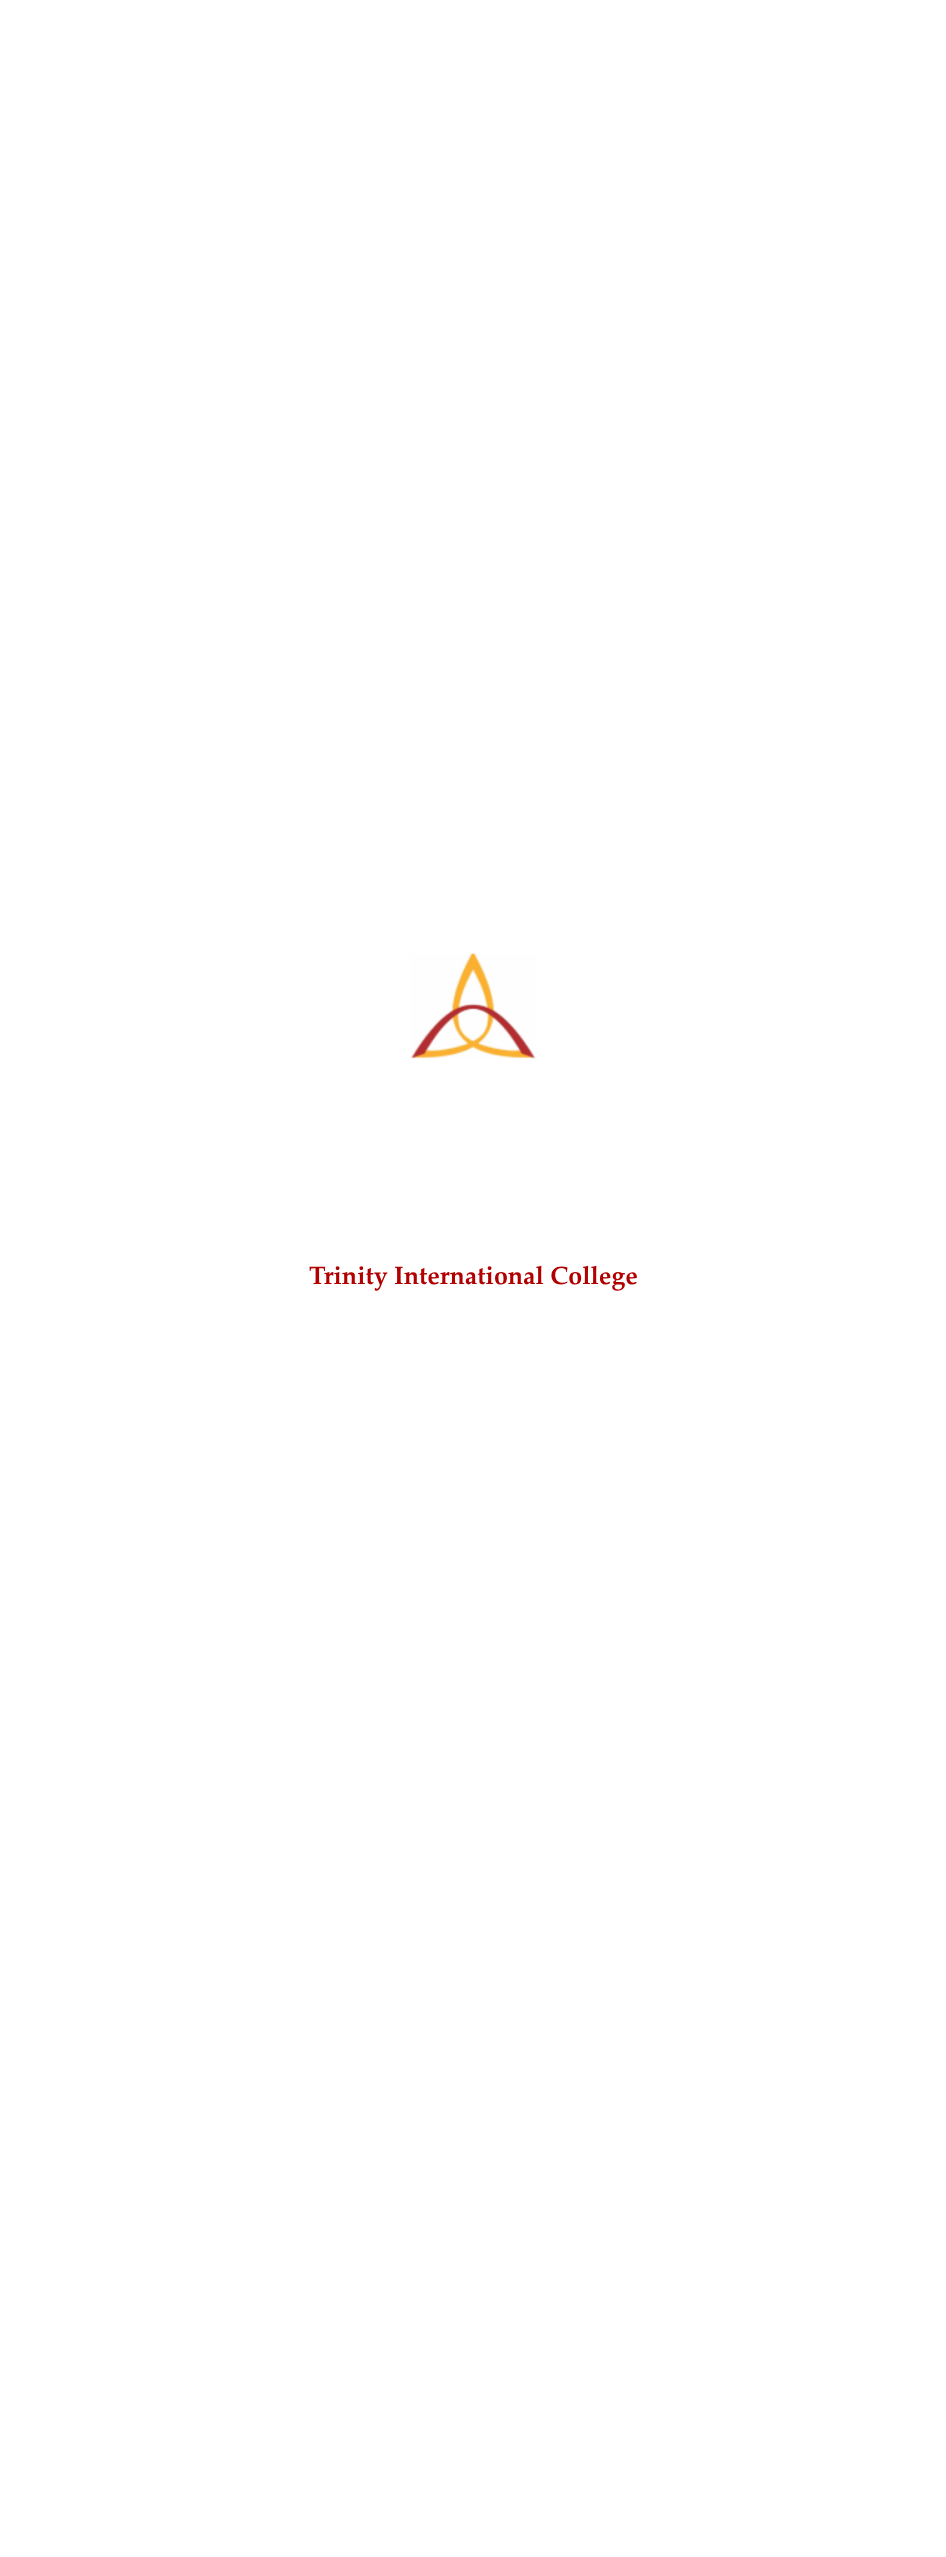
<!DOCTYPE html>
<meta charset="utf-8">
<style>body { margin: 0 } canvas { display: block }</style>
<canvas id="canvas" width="946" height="2557"></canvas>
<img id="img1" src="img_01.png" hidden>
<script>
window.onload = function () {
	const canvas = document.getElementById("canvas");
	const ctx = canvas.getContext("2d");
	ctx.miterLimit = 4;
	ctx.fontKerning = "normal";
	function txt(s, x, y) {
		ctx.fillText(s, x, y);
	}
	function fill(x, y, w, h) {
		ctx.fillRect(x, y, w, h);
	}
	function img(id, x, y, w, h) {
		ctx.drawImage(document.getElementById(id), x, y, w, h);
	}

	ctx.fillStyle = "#FFFFFF";
	fill(0, 0, 946, 2557);
	img("img1", 410, 953, 126, 106);
	ctx.font = "bold 25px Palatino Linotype";
	ctx.fillStyle = "#B20000";
	txt("Trinity International College", 309, 1284);
};
</script>
